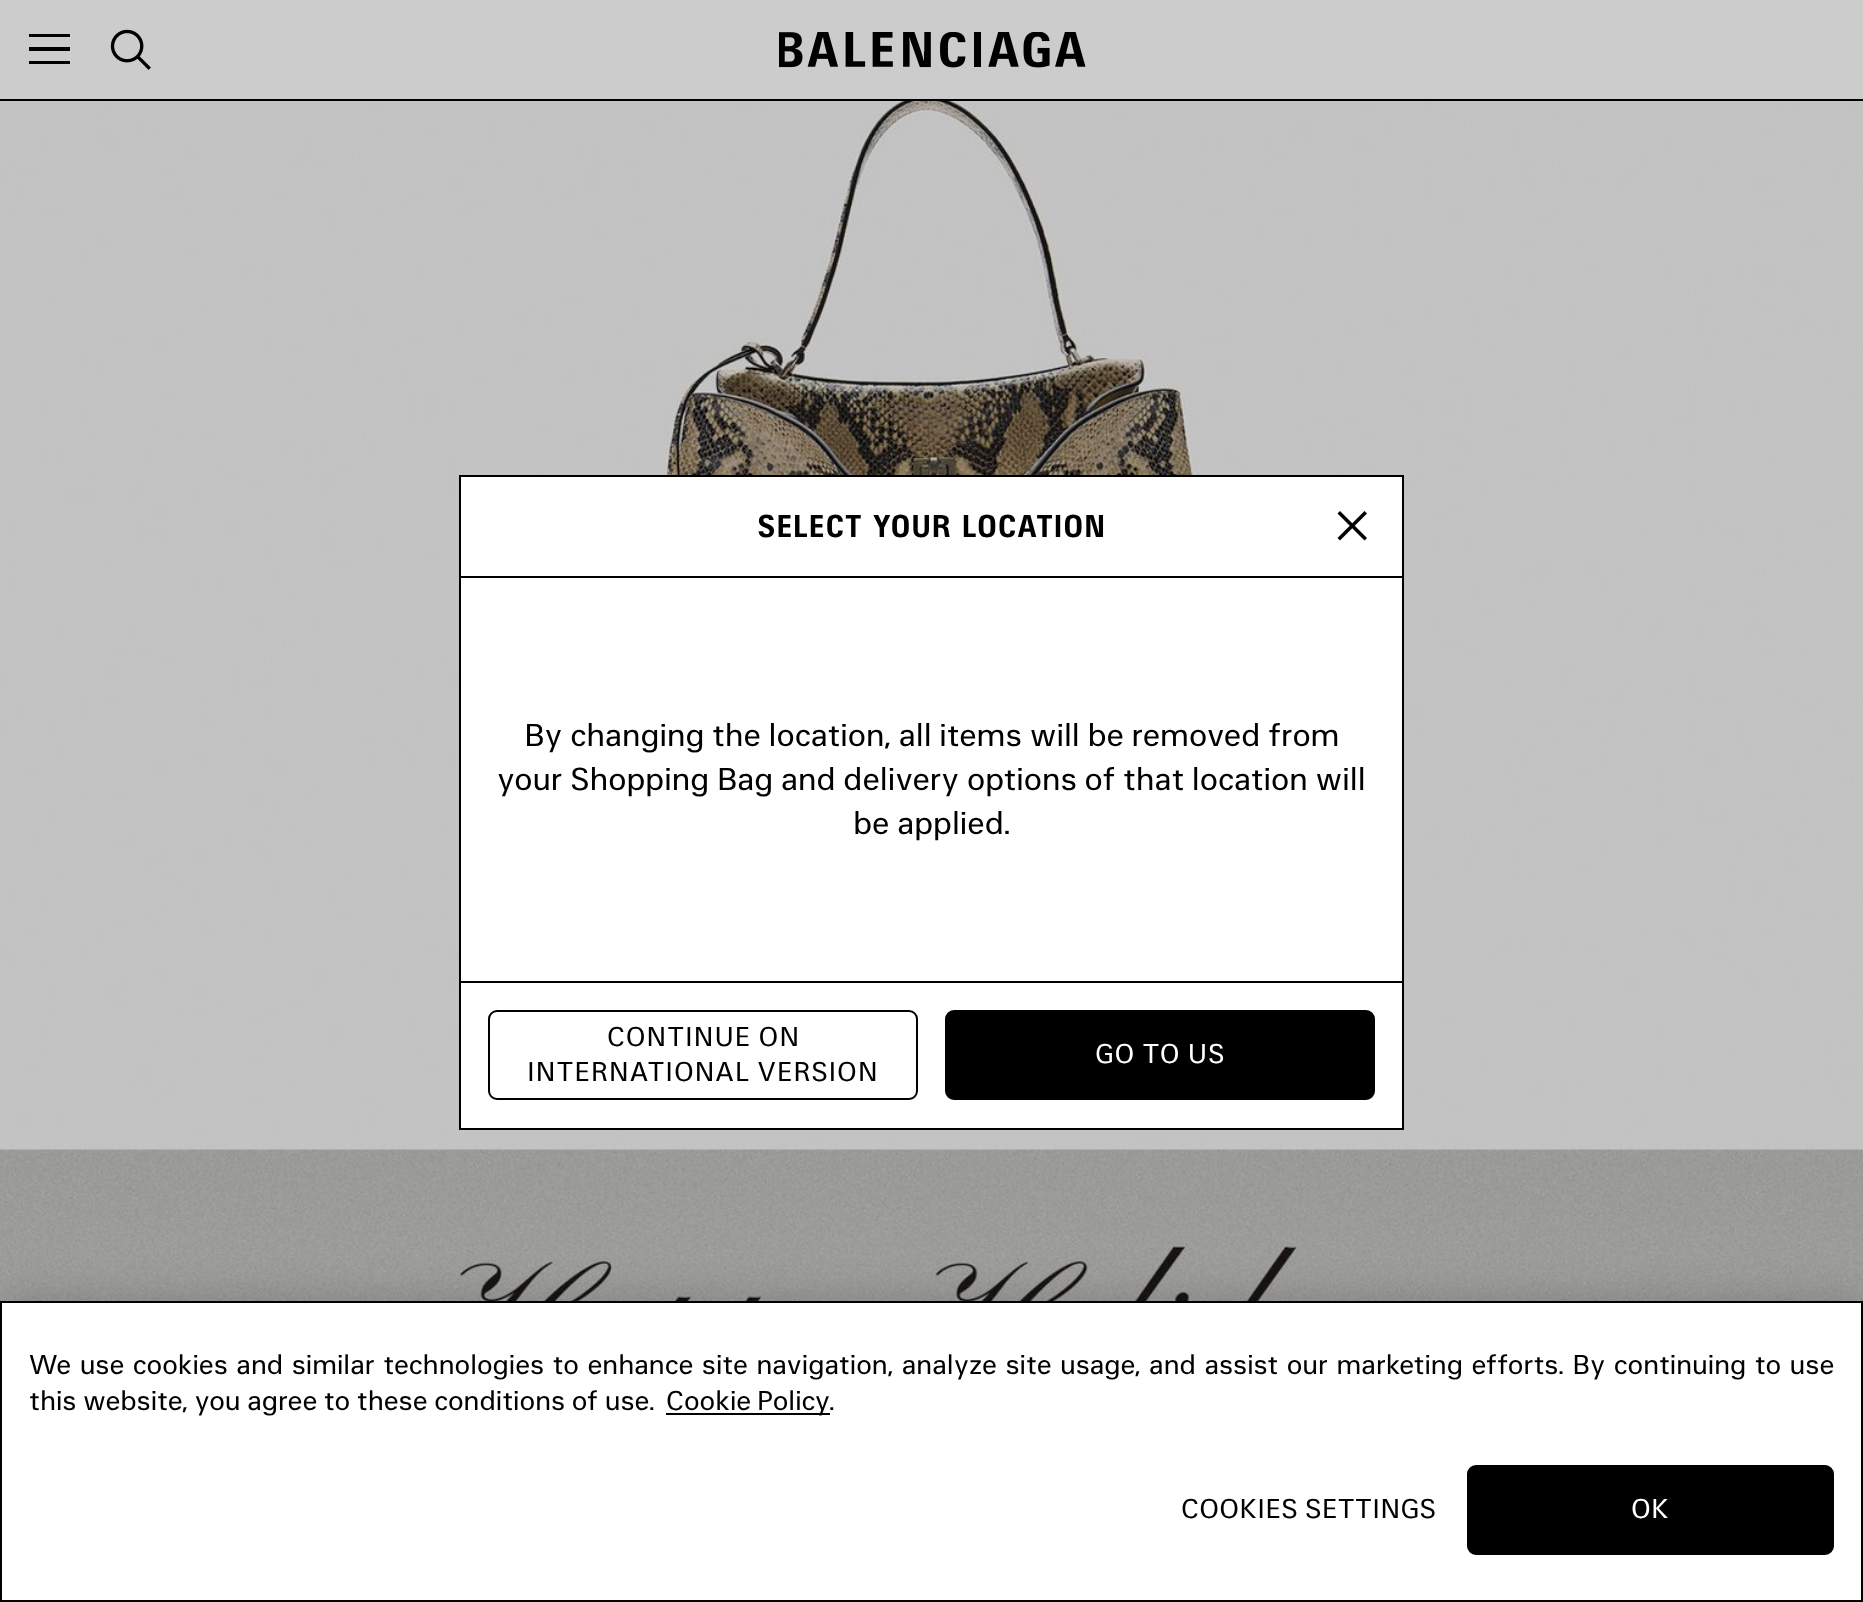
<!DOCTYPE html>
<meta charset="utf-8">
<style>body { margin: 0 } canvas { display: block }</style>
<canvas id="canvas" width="1863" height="1602"></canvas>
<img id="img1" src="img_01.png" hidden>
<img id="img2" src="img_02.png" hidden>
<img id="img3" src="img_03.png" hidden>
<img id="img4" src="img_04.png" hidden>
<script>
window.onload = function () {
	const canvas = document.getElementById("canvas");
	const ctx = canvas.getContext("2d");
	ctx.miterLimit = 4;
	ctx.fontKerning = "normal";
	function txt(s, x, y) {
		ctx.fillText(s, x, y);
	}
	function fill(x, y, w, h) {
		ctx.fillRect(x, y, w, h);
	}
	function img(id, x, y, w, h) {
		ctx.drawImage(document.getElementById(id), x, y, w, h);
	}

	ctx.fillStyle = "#CCCCCC";
	fill(0, 0, 1863, 1602);
	ctx.fillStyle = "#000000";
	fill(0, 99, 1863, 2);
	ctx.beginPath();
	ctx.moveTo(70, 37);
	ctx.lineTo(29, 37);
	ctx.lineTo(29, 34);
	ctx.lineTo(70, 34);
	ctx.closePath();
	ctx.moveTo(70, 51);
	ctx.lineTo(29, 51);
	ctx.lineTo(29, 47);
	ctx.lineTo(70, 47);
	ctx.closePath();
	ctx.moveTo(29, 64);
	ctx.lineTo(70, 64);
	ctx.lineTo(70, 61);
	ctx.lineTo(29, 61);
	ctx.closePath();
	ctx.fill();
	img("img1", 110, 29, 41, 41);
	img("img2", 779, 32, 307, 36);
	img("img3", 0, 101, 1863, 1048);
	img("img4", 0, 1149, 1863, 152);
	ctx.fillStyle = "#FFFFFF";
	ctx.beginPath();
	ctx.rect(460, 476, 943, 653);
	ctx.fill();
	ctx.strokeStyle = "#000000";
	ctx.lineWidth = 2;
	ctx.stroke();
	ctx.fillStyle = "#000000";
	fill(461, 576, 941, 2);
	ctx.beginPath();
	ctx.moveTo(1364.5, 511);
	ctx.lineTo(1367, 513.5);
	ctx.lineTo(1340, 540.5);
	ctx.lineTo(1337.5, 538);
	ctx.closePath();
	ctx.fill("evenodd");
	ctx.beginPath();
	ctx.moveTo(1340, 511);
	ctx.lineTo(1367, 538);
	ctx.lineTo(1364.5, 540.5);
	ctx.lineTo(1337.5, 513.5);
	ctx.closePath();
	ctx.fill("evenodd");
	fill(461, 981, 941, 2);
	ctx.beginPath();
	ctx.roundRect(489, 1011, 428, 88, 8);
	ctx.stroke();
	ctx.beginPath();
	ctx.roundRect(946, 1011, 428, 88, 8);
	ctx.fill();
	ctx.stroke();
	ctx.fillStyle = "rgba(0, 0, 0, 0.2)";
	ctx.filter = "blur(20px)";
	ctx.beginPath();
	ctx.rect(0, 1301, 1863, 301);
	ctx.fill();
	ctx.filter = "none";
	ctx.fillStyle = "#FFFFFF";
	ctx.beginPath();
	ctx.rect(1, 1302, 1861, 299);
	ctx.fill();
	ctx.stroke();
	ctx.fillStyle = "#000000";
	fill(666, 1413, 164, 2);
	ctx.beginPath();
	ctx.roundRect(1468, 1466, 365, 88, 8);
	ctx.fill();
	ctx.stroke();
	ctx.letterSpacing = "0.9px";
	ctx.font = "bold 31.5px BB";
	txt("SELECT YOUR LOCATION", 757, 537);
	ctx.letterSpacing = "0px";
	ctx.font = "31.5px BB";
	txt("By changing the location, all items will be removed from", 524, 746);
	txt("your Shopping Bag and delivery options of that location will", 497, 790);
	txt("be applied.", 853, 834);
	ctx.letterSpacing = "0.8px";
	ctx.font = "27px BB";
	txt("CONTINUE ON", 607, 1046);
	txt("INTERNATIONAL VERSION", 527, 1081);
	ctx.fillStyle = "#FFFFFF";
	txt("GO TO US", 1095, 1063);
	ctx.letterSpacing = "0px";
	ctx.wordSpacing = "1.9px";
	ctx.fillStyle = "#000000";
	txt("We use cookies and similar technologies to enhance site navigation, analyze site usage, and assist our marketing efforts. By continuing to use", 29, 1374);
	ctx.wordSpacing = "0px";
	txt("this website, you agree to these conditions of use.", 29, 1410);
	ctx.wordSpacing = "-1px";
	txt("Cookie Policy", 666, 1410);
	ctx.wordSpacing = "0px";
	txt(".", 829, 1410);
	ctx.letterSpacing = "0.25px";
	txt("COOKIES SETTINGS", 1181, 1518);
	ctx.fillStyle = "#FFFFFF";
	txt("OK", 1631, 1518);
};
</script>
